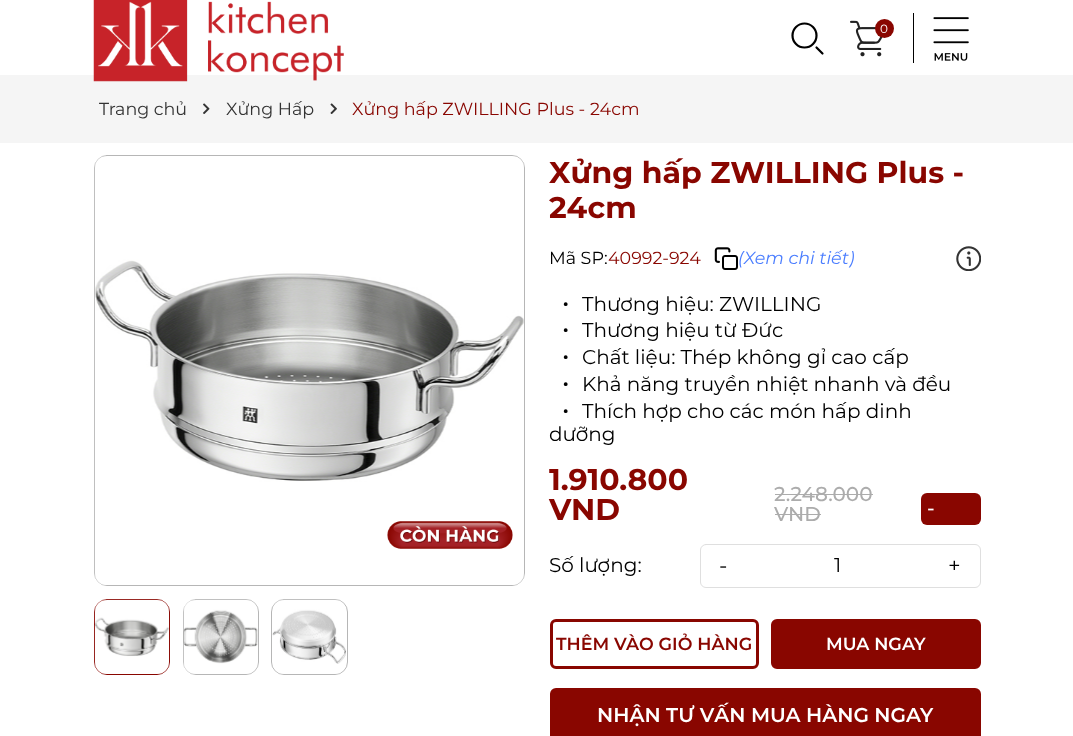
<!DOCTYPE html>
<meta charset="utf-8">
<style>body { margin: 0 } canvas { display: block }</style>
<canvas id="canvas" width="1073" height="736"></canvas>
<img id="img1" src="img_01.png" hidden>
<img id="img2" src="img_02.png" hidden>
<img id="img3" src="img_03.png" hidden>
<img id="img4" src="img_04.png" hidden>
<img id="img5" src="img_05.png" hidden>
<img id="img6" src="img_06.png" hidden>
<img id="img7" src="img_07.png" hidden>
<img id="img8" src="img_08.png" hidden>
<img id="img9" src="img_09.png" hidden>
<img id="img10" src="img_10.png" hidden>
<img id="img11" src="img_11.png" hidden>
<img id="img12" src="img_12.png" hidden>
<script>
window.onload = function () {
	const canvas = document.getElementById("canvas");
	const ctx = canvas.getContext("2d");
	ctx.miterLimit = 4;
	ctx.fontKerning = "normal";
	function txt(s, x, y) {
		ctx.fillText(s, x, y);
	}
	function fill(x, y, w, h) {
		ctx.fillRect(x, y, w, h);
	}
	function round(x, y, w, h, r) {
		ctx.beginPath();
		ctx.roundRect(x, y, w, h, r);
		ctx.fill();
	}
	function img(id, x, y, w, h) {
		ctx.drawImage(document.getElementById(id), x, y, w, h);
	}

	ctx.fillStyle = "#FFFFFF";
	fill(0, 0, 1073, 736);
	ctx.fillStyle = "#F5F5F5";
	fill(0, 75, 1073, 68);
	img("img1", 93, 0, 251, 82);
	ctx.beginPath();
	ctx.arc(804.5, 35.5, 12, 0, Math.PI * 2);
	ctx.strokeStyle = "#000000";
	ctx.lineWidth = 2.2;
	ctx.stroke();
	ctx.beginPath();
	ctx.moveTo(822.5, 53.5);
	ctx.lineTo(816.5, 47.5);
	ctx.lineCap = "round";
	ctx.stroke();
	img("img2", 850, 20, 33, 37);
	ctx.fillStyle = "#890600";
	ctx.beginPath();
	ctx.arc(884.5, 28.5, 9.5, 0, Math.PI * 2);
	ctx.fill();
	ctx.fillStyle = "#000000";
	fill(913, 13, 1, 50);
	img("img3", 933, 17, 36, 44);
	img("img4", 203, 103, 7, 11);
	img("img5", 330, 103, 7, 11);
	ctx.beginPath();
	ctx.roundRect(94.5, 155.5, 430, 430, 12.5);
	ctx.strokeStyle = "#B6B6B6";
	ctx.lineWidth = 1;
	ctx.stroke();
	img("img6", 94, 156, 430, 429);
	img("img7", 387, 521, 126, 28);
	ctx.beginPath();
	ctx.roundRect(94.5, 599.5, 75, 75, 12.5);
	ctx.strokeStyle = "#890600";
	ctx.stroke();
	img("img8", 94, 599, 76, 75);
	ctx.beginPath();
	ctx.roundRect(183.5, 599.5, 75, 75, 12.5);
	ctx.strokeStyle = "#B6B6B6";
	ctx.stroke();
	img("img9", 183, 599, 75, 75);
	ctx.beginPath();
	ctx.roundRect(271.5, 599.5, 76, 75, 12.5);
	ctx.stroke();
	img("img10", 272, 599, 74, 75);
	img("img11", 714, 247, 24, 23);
	img("img12", 956, 246, 25, 25);
	ctx.fillStyle = "#ACACAC";
	fill(775, 494, 98, 1);
	fill(775, 514, 46, 1);
	ctx.fillStyle = "#890600";
	round(921, 493, 60, 32, 6);
	ctx.beginPath();
	ctx.roundRect(700.5, 544.5, 280, 43, 5.5);
	ctx.strokeStyle = "#DFDFDF";
	ctx.stroke();
	ctx.beginPath();
	ctx.roundRect(551.5, 620.5, 206, 47, 4.5);
	ctx.strokeStyle = "#890600";
	ctx.lineWidth = 3;
	ctx.stroke();
	ctx.beginPath();
	ctx.roundRect(772.5, 620.5, 207, 47, 4.5);
	ctx.fill();
	ctx.stroke();
	ctx.beginPath();
	ctx.roundRect(551.5, 689.5, 428, 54, 4.5);
	ctx.fill();
	ctx.stroke();
	ctx.font = "12px Montserrat";
	ctx.fillStyle = "#FFFFFF";
	txt("0", 880, 33);
	ctx.font = "17.5px Montserrat";
	ctx.fillStyle = "#333333";
	txt("Trang chủ", 99, 115);
	txt("Xửng Hấp", 226, 115);
	ctx.fillStyle = "#890600";
	txt("Xửng hấp ZWILLING Plus - 24cm", 352, 115);
	ctx.font = "bold 30px Montserrat";
	txt("Xửng hấp ZWILLING Plus -", 549, 183);
	txt("24cm", 549, 218);
	ctx.font = "17.5px Montserrat";
	ctx.fillStyle = "#000000";
	txt("Mã SP:", 549, 264);
	ctx.fillStyle = "#890600";
	txt("40992-924", 608, 264);
	ctx.font = "italic 17.5px Montserrat";
	ctx.fillStyle = "#4A7DFF";
	txt("(Xem chi tiết)", 738, 264);
	ctx.font = "25px Montserrat";
	ctx.fillStyle = "#000000";
	txt("•", 562, 311);
	ctx.font = "20px Montserrat";
	txt("Thương hiệu: ZWILLING", 582, 311);
	ctx.font = "25px Montserrat";
	txt("•", 562, 337);
	ctx.font = "20px Montserrat";
	txt("Thương hiệu từ Đức", 582, 337);
	ctx.font = "25px Montserrat";
	txt("•", 562, 364);
	ctx.font = "20px Montserrat";
	txt("Chất liệu: Thép không gỉ cao cấp", 582, 364);
	ctx.font = "25px Montserrat";
	txt("•", 562, 391);
	ctx.font = "20px Montserrat";
	txt("Khả năng truyền nhiệt nhanh và đều", 582, 391);
	ctx.font = "25px Montserrat";
	txt("•", 562, 418);
	ctx.font = "20px Montserrat";
	txt("Thích hợp cho các món hấp dinh", 582, 418);
	txt("dưỡng", 549, 441);
	ctx.font = "bold 30px Montserrat";
	ctx.fillStyle = "#890600";
	txt("1.910.800", 549, 490);
	txt("VND", 549, 520);
	ctx.font = "500 20px Montserrat";
	ctx.fillStyle = "#ACACAC";
	txt("2.248.000", 774, 501);
	txt("VND", 774, 521);
	ctx.fillStyle = "#FFFFFF";
	txt("-", 927, 515);
	ctx.font = "20px Montserrat";
	ctx.fillStyle = "#000000";
	txt("Số lượng:", 549, 572);
	ctx.font = "22px Montserrat";
	txt("-", 719, 573);
	ctx.font = "20px Montserrat";
	txt("1", 834, 572);
	ctx.font = "22px Montserrat";
	txt("+", 948, 573);
	ctx.font = "600 17.5px Montserrat";
	ctx.fillStyle = "#890600";
	txt("THÊM VÀO GIỎ HÀNG", 556, 650);
	ctx.fillStyle = "#FFFFFF";
	txt("MUA NGAY", 826, 650);
	ctx.font = "600 20px Montserrat";
	txt("NHẬN TƯ VẤN MUA HÀNG NGAY", 597, 722);
};
</script>
